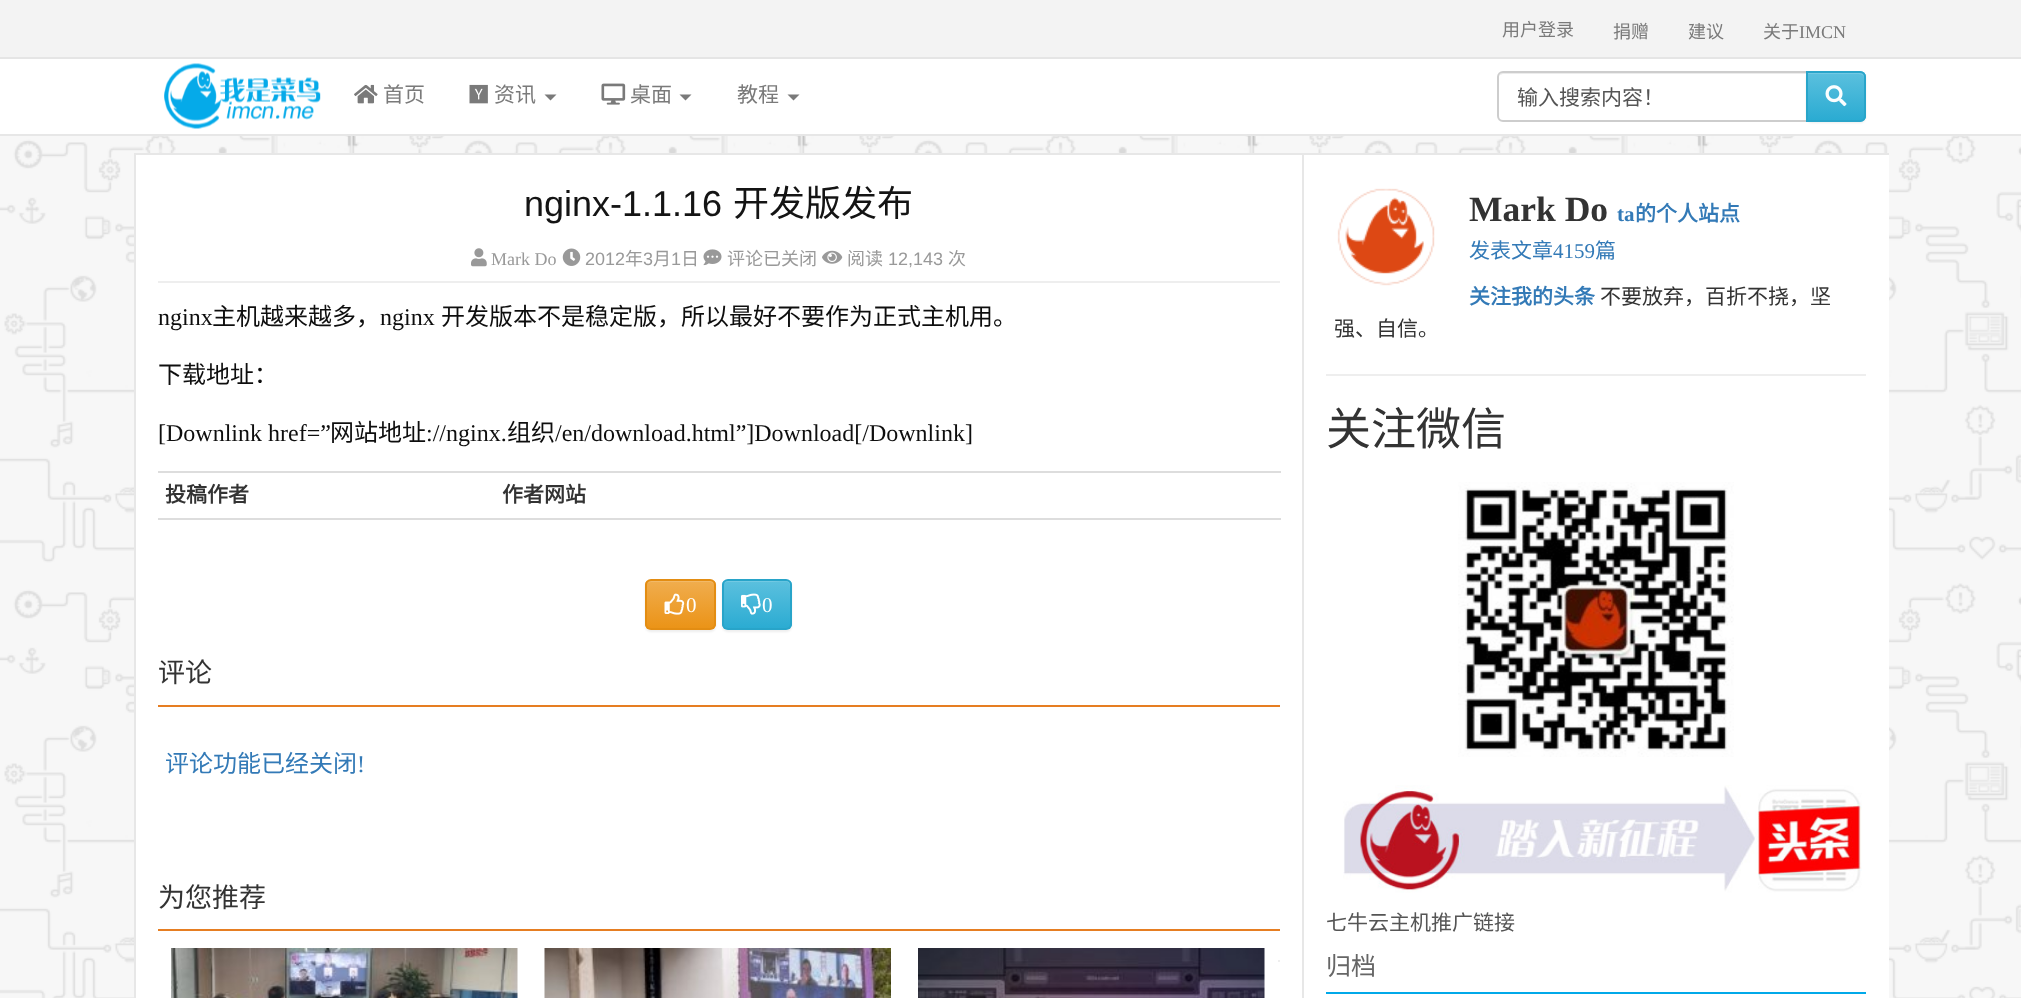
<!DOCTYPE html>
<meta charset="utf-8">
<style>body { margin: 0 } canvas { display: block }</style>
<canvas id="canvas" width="2021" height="998"></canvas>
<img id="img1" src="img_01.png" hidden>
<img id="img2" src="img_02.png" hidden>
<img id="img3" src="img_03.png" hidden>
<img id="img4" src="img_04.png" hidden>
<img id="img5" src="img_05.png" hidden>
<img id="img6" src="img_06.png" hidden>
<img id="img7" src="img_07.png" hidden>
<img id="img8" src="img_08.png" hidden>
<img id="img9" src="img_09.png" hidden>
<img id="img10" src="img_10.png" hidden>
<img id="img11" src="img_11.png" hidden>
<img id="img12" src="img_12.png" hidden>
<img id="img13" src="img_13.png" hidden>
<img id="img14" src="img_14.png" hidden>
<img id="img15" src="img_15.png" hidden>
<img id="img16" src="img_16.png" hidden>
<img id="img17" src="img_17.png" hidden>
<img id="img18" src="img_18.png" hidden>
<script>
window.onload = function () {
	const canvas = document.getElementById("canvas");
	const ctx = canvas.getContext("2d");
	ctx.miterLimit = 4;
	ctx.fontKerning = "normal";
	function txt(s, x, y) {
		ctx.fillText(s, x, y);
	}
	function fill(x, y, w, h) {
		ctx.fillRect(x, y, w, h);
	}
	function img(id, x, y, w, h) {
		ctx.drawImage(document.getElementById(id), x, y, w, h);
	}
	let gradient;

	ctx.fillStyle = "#FFFFFF";
	fill(0, 0, 2021, 998);
	img("img1", 0, 59, 2021, 939);
	ctx.fillStyle = "rgba(255, 255, 255, 0.98)";
	fill(0, 59, 2021, 75);
	ctx.fillStyle = "rgba(231, 231, 231, 0.98)";
	fill(0, 134, 2021, 2);
	ctx.fillStyle = "#F3F3F3";
	fill(0, 0, 2021, 57);
	ctx.fillStyle = "#E5E5E5";
	fill(0, 57, 2021, 2);
	img("img2", 164, 63, 157, 66);
	img("img3", 354, 84, 24, 20);
	img("img4", 469, 84, 19, 20);
	ctx.fillStyle = "#7A7A7A";
	ctx.beginPath();
	ctx.moveTo(544.5, 94.5);
	ctx.lineTo(556.5, 94.5);
	ctx.lineTo(550.5, 100.5);
	ctx.closePath();
	ctx.fill();
	img("img5", 601, 83, 25, 22);
	ctx.beginPath();
	ctx.moveTo(679.5, 94.5);
	ctx.lineTo(691.5, 94.5);
	ctx.lineTo(685.5, 100.5);
	ctx.closePath();
	ctx.fill();
	ctx.beginPath();
	ctx.moveTo(787.5, 94.5);
	ctx.lineTo(799.5, 94.5);
	ctx.lineTo(793.5, 100.5);
	ctx.closePath();
	ctx.fill();
	ctx.fillStyle = "#ECECEC";
	ctx.beginPath();
	ctx.moveTo(1503, 74);
	ctx.lineTo(1806, 74);
	ctx.lineTo(1806, 72);
	ctx.lineTo(1504, 72);
	ctx.bezierCurveTo(1502, 72, 1500, 74, 1499, 76);
	ctx.bezierCurveTo(1500, 75, 1502, 74, 1503, 74);
	ctx.closePath();
	ctx.fill();
	ctx.beginPath();
	ctx.roundRect(1498, 72, 309, 49, [5, 0, 0, 5]);
	ctx.strokeStyle = "rgba(204, 204, 204, 0.98)";
	ctx.lineWidth = 2;
	ctx.stroke();
	ctx.save();
	ctx.beginPath();
	ctx.moveTo(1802, 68);
	ctx.lineTo(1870, 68);
	ctx.lineTo(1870, 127);
	ctx.lineTo(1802, 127);
	ctx.closePath();
	ctx.moveTo(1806, 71);
	ctx.lineTo(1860, 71);
	ctx.bezierCurveTo(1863.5, 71, 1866, 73.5, 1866, 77);
	ctx.lineTo(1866, 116);
	ctx.bezierCurveTo(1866, 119.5, 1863.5, 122, 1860, 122);
	ctx.lineTo(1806, 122);
	ctx.closePath();
	ctx.clip("evenodd");
	ctx.fillStyle = "rgba(0, 0, 0, 0.07)";
	ctx.filter = "blur(1px)";
	ctx.beginPath();
	ctx.roundRect(1806, 72, 60, 51, 6);
	ctx.fill();
	ctx.filter = "none";
	ctx.restore();
	ctx.fillStyle = "rgba(91, 192, 222, 0.98)";
	ctx.beginPath();
	ctx.roundRect(1806, 71, 60, 51, [0, 6, 6, 0]);
	ctx.fill();
	ctx.save();
	ctx.beginPath();
	ctx.roundRect(1806, 71, 60, 51, [0, 6, 6, 0]);
	ctx.clip();
	gradient = ctx.createLinearGradient(1836, 72, 1836, 120);
	gradient.addColorStop(0, "rgba(91, 192, 222, 0.98)");
	gradient.addColorStop(1, "rgba(42, 171, 210, 0.98)");
	ctx.fillStyle = gradient;
	fill(1806, 72, 60, 48);
	ctx.restore();
	ctx.fillStyle = "rgba(255, 255, 255, 0.15)";
	ctx.beginPath();
	ctx.moveTo(1808, 74);
	ctx.lineTo(1851, 74);
	ctx.bezierCurveTo(1867, 74, 1864, 74, 1864, 91);
	ctx.lineTo(1864, 118);
	ctx.bezierCurveTo(1865, 117, 1865, 116, 1865, 115);
	ctx.lineTo(1865, 77);
	ctx.bezierCurveTo(1865, 74, 1863, 72, 1860, 72);
	ctx.lineTo(1808, 72);
	ctx.closePath();
	ctx.fill();
	ctx.beginPath();
	ctx.roundRect(1807, 72, 58, 49, [0, 5, 5, 0]);
	ctx.strokeStyle = "rgba(40, 164, 201, 0.98)";
	ctx.stroke();
	img("img6", 1825, 85, 22, 22);
	ctx.fillStyle = "#FFFFFF";
	fill(136, 155, 1753, 843);
	ctx.strokeStyle = "#E7E7E7";
	ctx.strokeRect(135, 154, 1168, 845);
	ctx.fillStyle = "#EEEEEE";
	fill(158, 281, 1122, 2);
	img("img7", 471, 248, 16, 19);
	img("img8", 562, 248, 19, 18);
	img("img9", 703, 249, 19, 17);
	img("img10", 822, 250, 21, 14);
	ctx.fillStyle = "#DDDDDD";
	fill(158, 471, 1123, 2);
	fill(158, 518, 1123, 2);
	ctx.fillStyle = "rgba(0, 0, 0, 0.07)";
	ctx.filter = "blur(1px)";
	ctx.beginPath();
	ctx.roundRect(645, 581, 71, 51, 6);
	ctx.fill();
	ctx.filter = "none";
	ctx.save();
	ctx.beginPath();
	ctx.roundRect(645, 579, 71, 51, 6);
	ctx.clip();
	gradient = ctx.createLinearGradient(680, 581, 680, 629);
	gradient.addColorStop(0, "#F0AD4E");
	gradient.addColorStop(1, "#EB9316");
	ctx.fillStyle = gradient;
	fill(645, 581, 71, 48);
	ctx.restore();
	ctx.fillStyle = "#F2B968";
	ctx.beginPath();
	ctx.moveTo(651, 582);
	ctx.lineTo(710, 582);
	ctx.bezierCurveTo(712, 582, 714, 584, 714, 586);
	ctx.bezierCurveTo(714, 583, 712, 581, 709, 581);
	ctx.lineTo(652, 581);
	ctx.bezierCurveTo(650, 581, 649, 582, 648, 583);
	ctx.closePath();
	ctx.fill();
	ctx.beginPath();
	ctx.roundRect(646, 580, 69, 49, 5);
	ctx.strokeStyle = "#E38D13";
	ctx.stroke();
	img("img11", 664, 593, 21, 22);
	ctx.fillStyle = "rgba(0, 0, 0, 0.07)";
	ctx.filter = "blur(1px)";
	ctx.beginPath();
	ctx.roundRect(722, 581, 70, 51, 6);
	ctx.fill();
	ctx.filter = "none";
	ctx.save();
	ctx.beginPath();
	ctx.roundRect(722, 579, 70, 51, 6);
	ctx.clip();
	gradient = ctx.createLinearGradient(757, 581, 757, 629);
	gradient.addColorStop(0, "#5BC0DE");
	gradient.addColorStop(1, "#2AABD2");
	ctx.fillStyle = gradient;
	fill(722, 581, 70, 48);
	ctx.restore();
	ctx.fillStyle = "rgba(255, 255, 255, 0.15)";
	ctx.beginPath();
	ctx.moveTo(728, 582);
	ctx.lineTo(767, 582);
	ctx.bezierCurveTo(792, 582, 790, 577, 790, 599);
	ctx.lineTo(790, 627);
	ctx.bezierCurveTo(791, 626, 791, 625, 791, 624);
	ctx.lineTo(791, 586);
	ctx.bezierCurveTo(791, 583, 789, 581, 786, 581);
	ctx.lineTo(728, 581);
	ctx.bezierCurveTo(725, 581, 723, 583, 723, 586);
	ctx.bezierCurveTo(723, 584, 725, 582, 728, 582);
	ctx.closePath();
	ctx.fill();
	ctx.beginPath();
	ctx.roundRect(723, 580, 68, 49, 5);
	ctx.strokeStyle = "#28A4C9";
	ctx.stroke();
	img("img12", 741, 593, 20, 22);
	ctx.fillStyle = "#E67E22";
	fill(158, 705, 1122, 2);
	fill(158, 929, 1122, 2);
	img("img13", 171, 948, 347, 50);
	img("img14", 544, 948, 347, 50);
	img("img15", 918, 948, 347, 50);
	ctx.fillStyle = "#EEEEEE";
	fill(1278, 960, 2, 2);
	ctx.fillStyle = "#E7E7E7";
	fill(1304, 153, 585, 2);
	img("img16", 1337, 188, 98, 98);
	ctx.fillStyle = "#EEEEEE";
	fill(1326, 374, 540, 2);
	img("img17", 1458, 482, 276, 275);
	img("img18", 1343, 785, 519, 108);
	ctx.fillStyle = "#01A9E9";
	fill(1326, 992, 540, 2);
	ctx.font = "18px Noto Sans CJK SC";
	ctx.fillStyle = "#7A7A7A";
	txt("用户登录", 1502, 36);
	txt("捐赠", 1613, 38);
	txt("建议", 1688, 38);
	txt("关于", 1763, 38);
	ctx.font = "18px Liberation Serif";
	txt("IMCN", 1799, 38);
	ctx.font = "21px Noto Sans CJK SC";
	txt("首页", 383, 102);
	txt("资讯", 494, 102);
	txt("桌面", 630, 102);
	txt("教程", 737, 102);
	ctx.fillStyle = "#555555";
	txt("输入搜索内容！", 1517, 105);
	ctx.font = "36px Liberation Sans";
	ctx.fillStyle = "#141414";
	txt("nginx-1.1.16", 524, 216);
	ctx.font = "36px Noto Sans CJK SC";
	txt("开发版发布", 733, 216);
	ctx.font = "18px Liberation Serif";
	ctx.fillStyle = "#999999";
	txt("Mark Do", 491, 265);
	ctx.font = "18px Liberation Sans";
	txt("2012", 585, 265);
	ctx.font = "18px Noto Sans CJK SC";
	txt("年", 625, 265);
	ctx.font = "18px Liberation Sans";
	txt("3", 643, 265);
	ctx.font = "18px Noto Sans CJK SC";
	txt("月", 653, 265);
	ctx.font = "18px Liberation Sans";
	txt("1", 671, 265);
	ctx.font = "18px Noto Sans CJK SC";
	txt("日", 681, 265);
	txt("评论已关闭", 727, 265);
	txt("阅读", 847, 265);
	ctx.font = "18px Liberation Sans";
	txt("12,143", 888, 265);
	ctx.font = "18px Noto Sans CJK SC";
	txt("次", 948, 265);
	ctx.font = "24px Liberation Serif";
	ctx.fillStyle = "#0E0E0E";
	txt("nginx", 158, 325);
	ctx.font = "24px Noto Sans CJK SC";
	txt("主机越来越多，", 212, 325);
	ctx.font = "24px Liberation Serif";
	txt("nginx", 380, 325);
	ctx.font = "24px Noto Sans CJK SC";
	txt("开发版本不是稳定版，所以最好不要作为正式主机用。", 441, 325);
	txt("下载地址：", 158, 383);
	ctx.font = "24px Liberation Serif";
	txt("[Downlink href=”", 158, 441);
	ctx.font = "24px Noto Sans CJK SC";
	txt("网站地址", 330, 441);
	ctx.font = "24px Liberation Serif";
	txt("://nginx.", 426, 441);
	ctx.font = "24px Noto Sans CJK SC";
	txt("组织", 507, 441);
	ctx.font = "24px Liberation Serif";
	txt("/en/download.html”]Download[/Downlink]", 555, 441);
	ctx.font = "bold 21px Noto Sans CJK SC";
	ctx.fillStyle = "#333333";
	txt("投稿作者", 165, 502);
	txt("作者网站", 502, 502);
	ctx.font = "21px Liberation Serif";
	ctx.fillStyle = "#FFFFFF";
	txt("0", 686, 612);
	txt("0", 762, 612);
	ctx.font = "27px Noto Sans CJK SC";
	ctx.fillStyle = "#333333";
	txt("评论", 158, 682);
	ctx.font = "24px Noto Sans CJK SC";
	ctx.fillStyle = "#337AB7";
	txt("评论功能已经关闭", 165, 772);
	ctx.font = "24px Liberation Serif";
	txt("!", 357, 772);
	ctx.font = "27px Noto Sans CJK SC";
	ctx.fillStyle = "#333333";
	txt("为您推荐", 158, 907);
	ctx.font = "bold 35.5px Liberation Serif";
	txt("Mark Do", 1469, 221);
	ctx.font = "bold 21px Liberation Serif";
	ctx.fillStyle = "#337AB7";
	txt("ta", 1617, 221);
	ctx.font = "bold 21px Noto Sans CJK SC";
	txt("的个人站点", 1635, 221);
	ctx.font = "21px Noto Sans CJK SC";
	txt("发表文章", 1469, 258);
	ctx.font = "21px Liberation Serif";
	txt("4159", 1553, 258);
	ctx.font = "21px Noto Sans CJK SC";
	txt("篇", 1595, 258);
	ctx.font = "bold 21px Noto Sans CJK SC";
	txt("关注我的头条", 1469, 304);
	ctx.font = "21px Noto Sans CJK SC";
	ctx.fillStyle = "#333333";
	txt("不要放弃，百折不挠，坚", 1600, 304);
	txt("强、自信。", 1334, 336);
	ctx.font = "45px Noto Sans CJK SC";
	txt("关注微信", 1326, 445);
	ctx.font = "21px Noto Sans CJK SC";
	ctx.fillStyle = "#555555";
	txt("七牛云主机推广链接", 1326, 930);
	ctx.font = "25px Noto Sans CJK SC";
	ctx.fillStyle = "#666666";
	txt("归档", 1326, 975);
};
</script>
